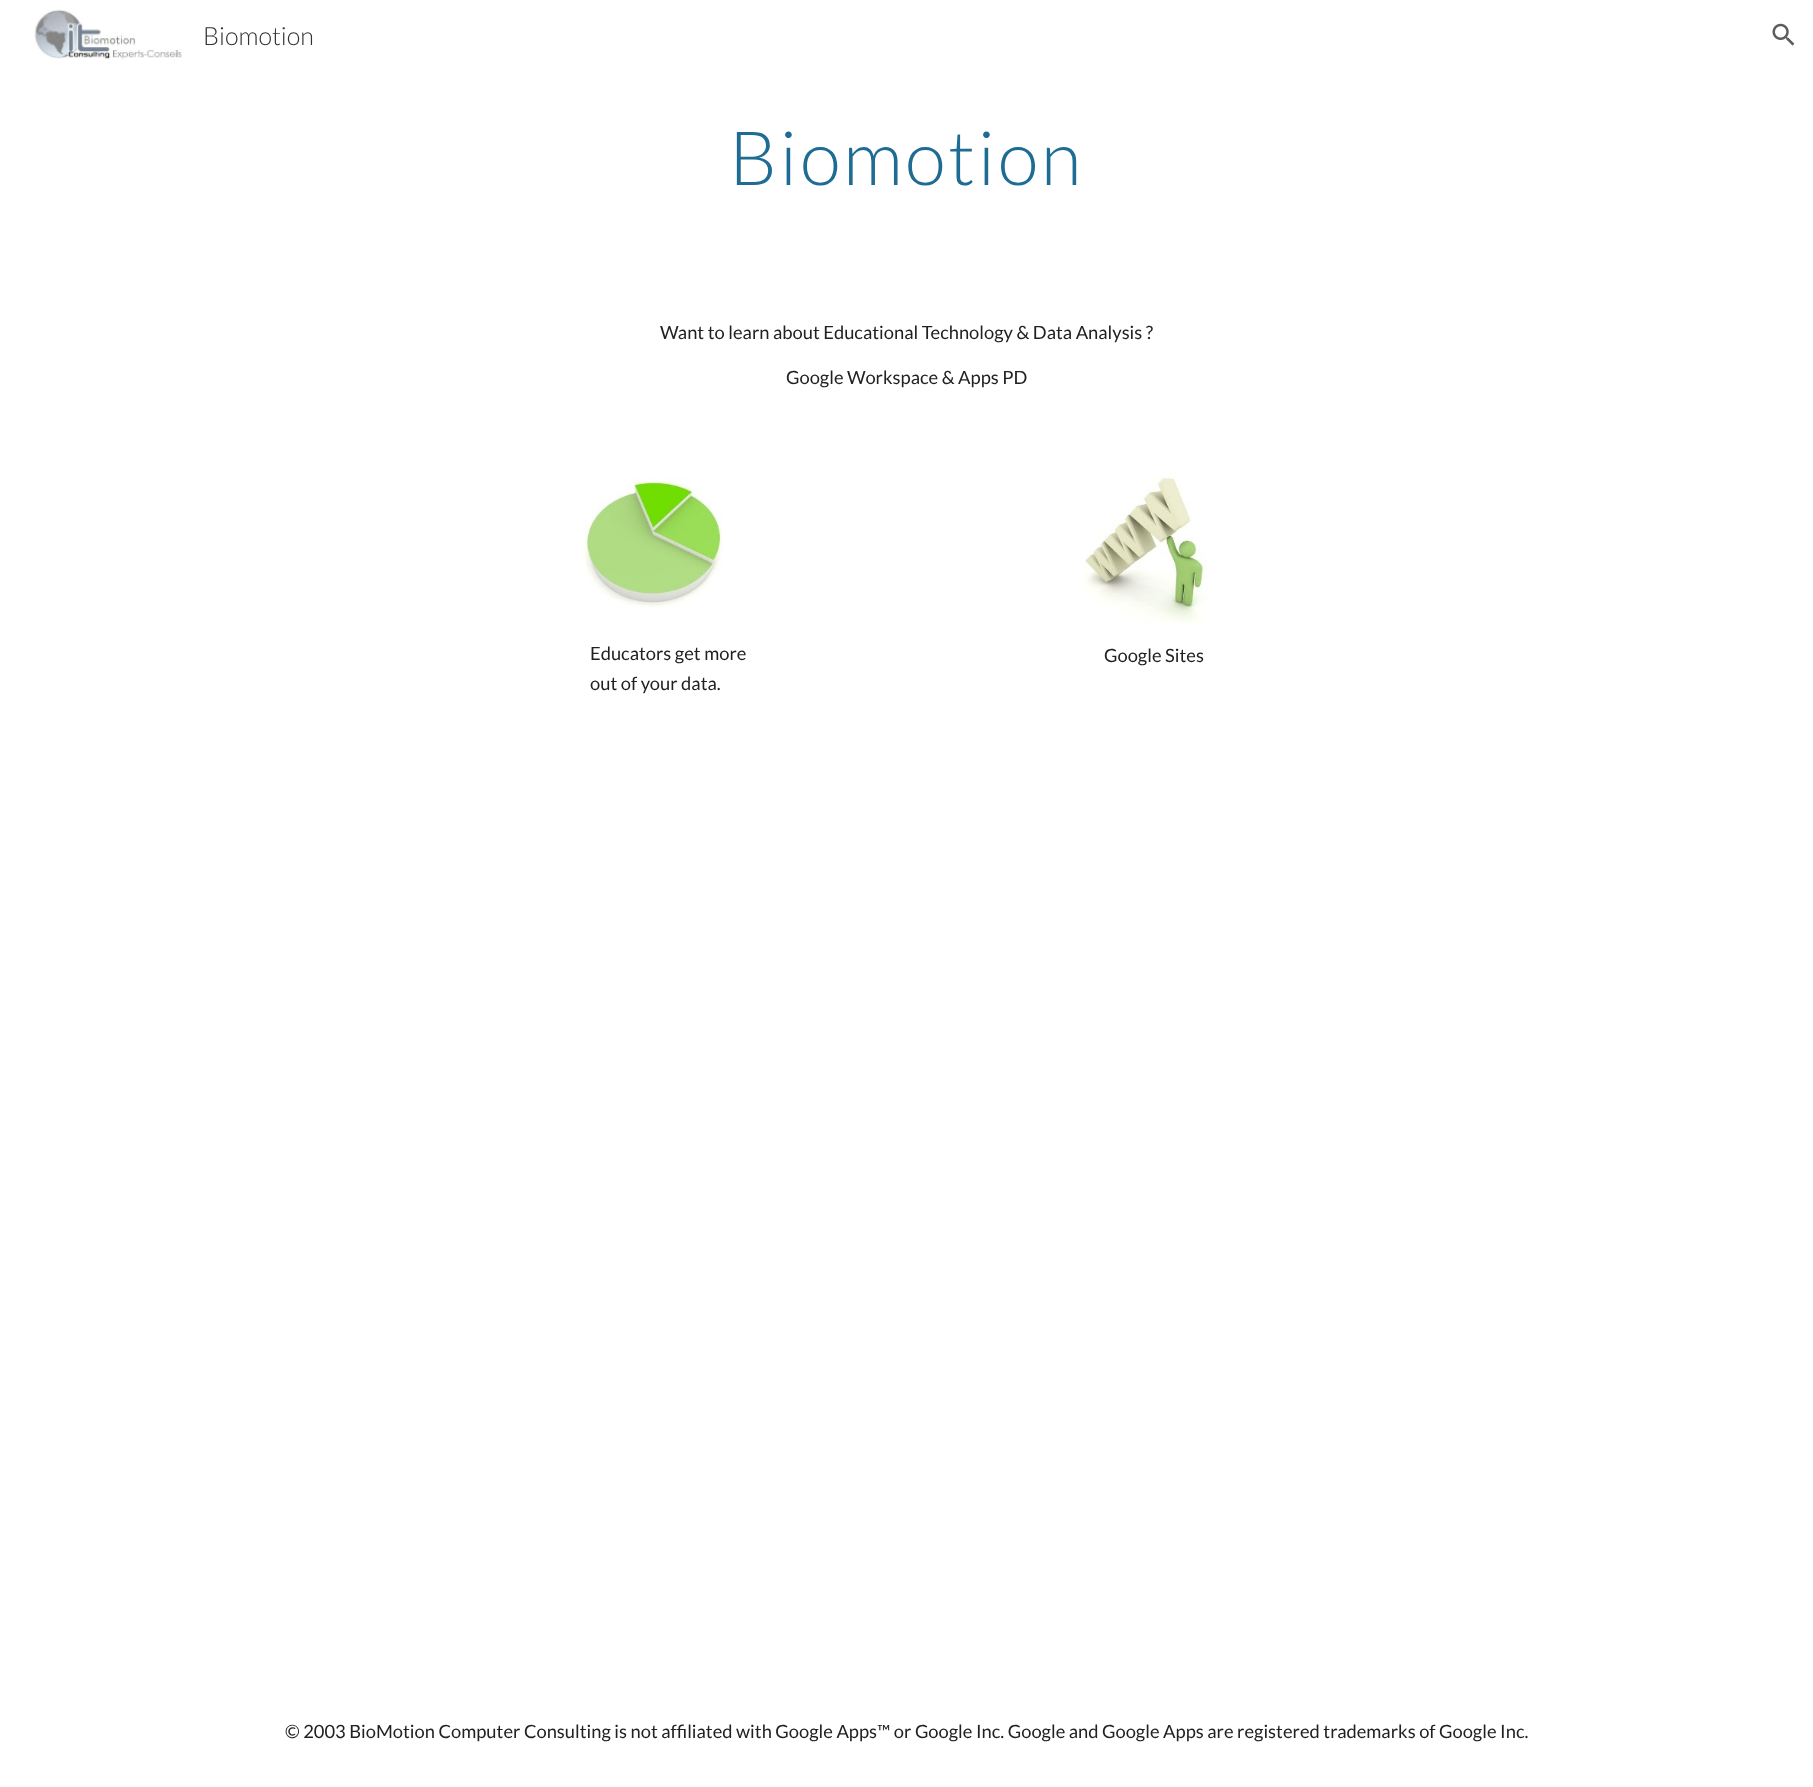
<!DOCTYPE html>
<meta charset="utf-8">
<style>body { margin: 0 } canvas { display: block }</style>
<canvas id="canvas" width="1813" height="1787"></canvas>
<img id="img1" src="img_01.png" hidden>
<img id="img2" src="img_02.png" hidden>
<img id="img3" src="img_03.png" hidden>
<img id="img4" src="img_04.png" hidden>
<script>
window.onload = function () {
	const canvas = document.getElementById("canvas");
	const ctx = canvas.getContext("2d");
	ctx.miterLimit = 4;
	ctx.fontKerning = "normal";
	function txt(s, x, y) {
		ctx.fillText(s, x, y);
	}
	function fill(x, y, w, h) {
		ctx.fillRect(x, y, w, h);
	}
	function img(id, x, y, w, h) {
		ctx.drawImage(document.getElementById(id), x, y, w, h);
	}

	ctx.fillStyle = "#FFFFFF";
	fill(0, 0, 1813, 1787);
	img("img1", 34, 9, 149, 51);
	img("img2", 1772, 23, 23, 23);
	img("img3", 579, 476, 144, 132);
	img("img4", 1084, 476, 124, 147);
	ctx.font = "300 25px Lato";
	ctx.fillStyle = "#333333";
	txt("Biomotion", 203, 45);
	ctx.letterSpacing = "2.5px";
	ctx.font = "300 75px Lato";
	ctx.fillStyle = "#1E6C93";
	txt("Biomotion", 729, 185);
	ctx.letterSpacing = "0px";
	ctx.font = "18.33px Lato";
	ctx.fillStyle = "#212121";
	txt("Want to learn about Educational Technology & Data Analysis ?", 660, 339);
	txt("Google Workspace & Apps PD", 786, 384);
	txt("Educators get more", 590, 660);
	txt("out of your data.", 590, 690);
	txt("Google Sites", 1104, 662);
	txt("© 2003 BioMotion Computer Consulting is not affiliated with Google Apps™ or Google Inc. Google and Google Apps are registered trademarks of Google Inc.", 285, 1738);
};
</script>
